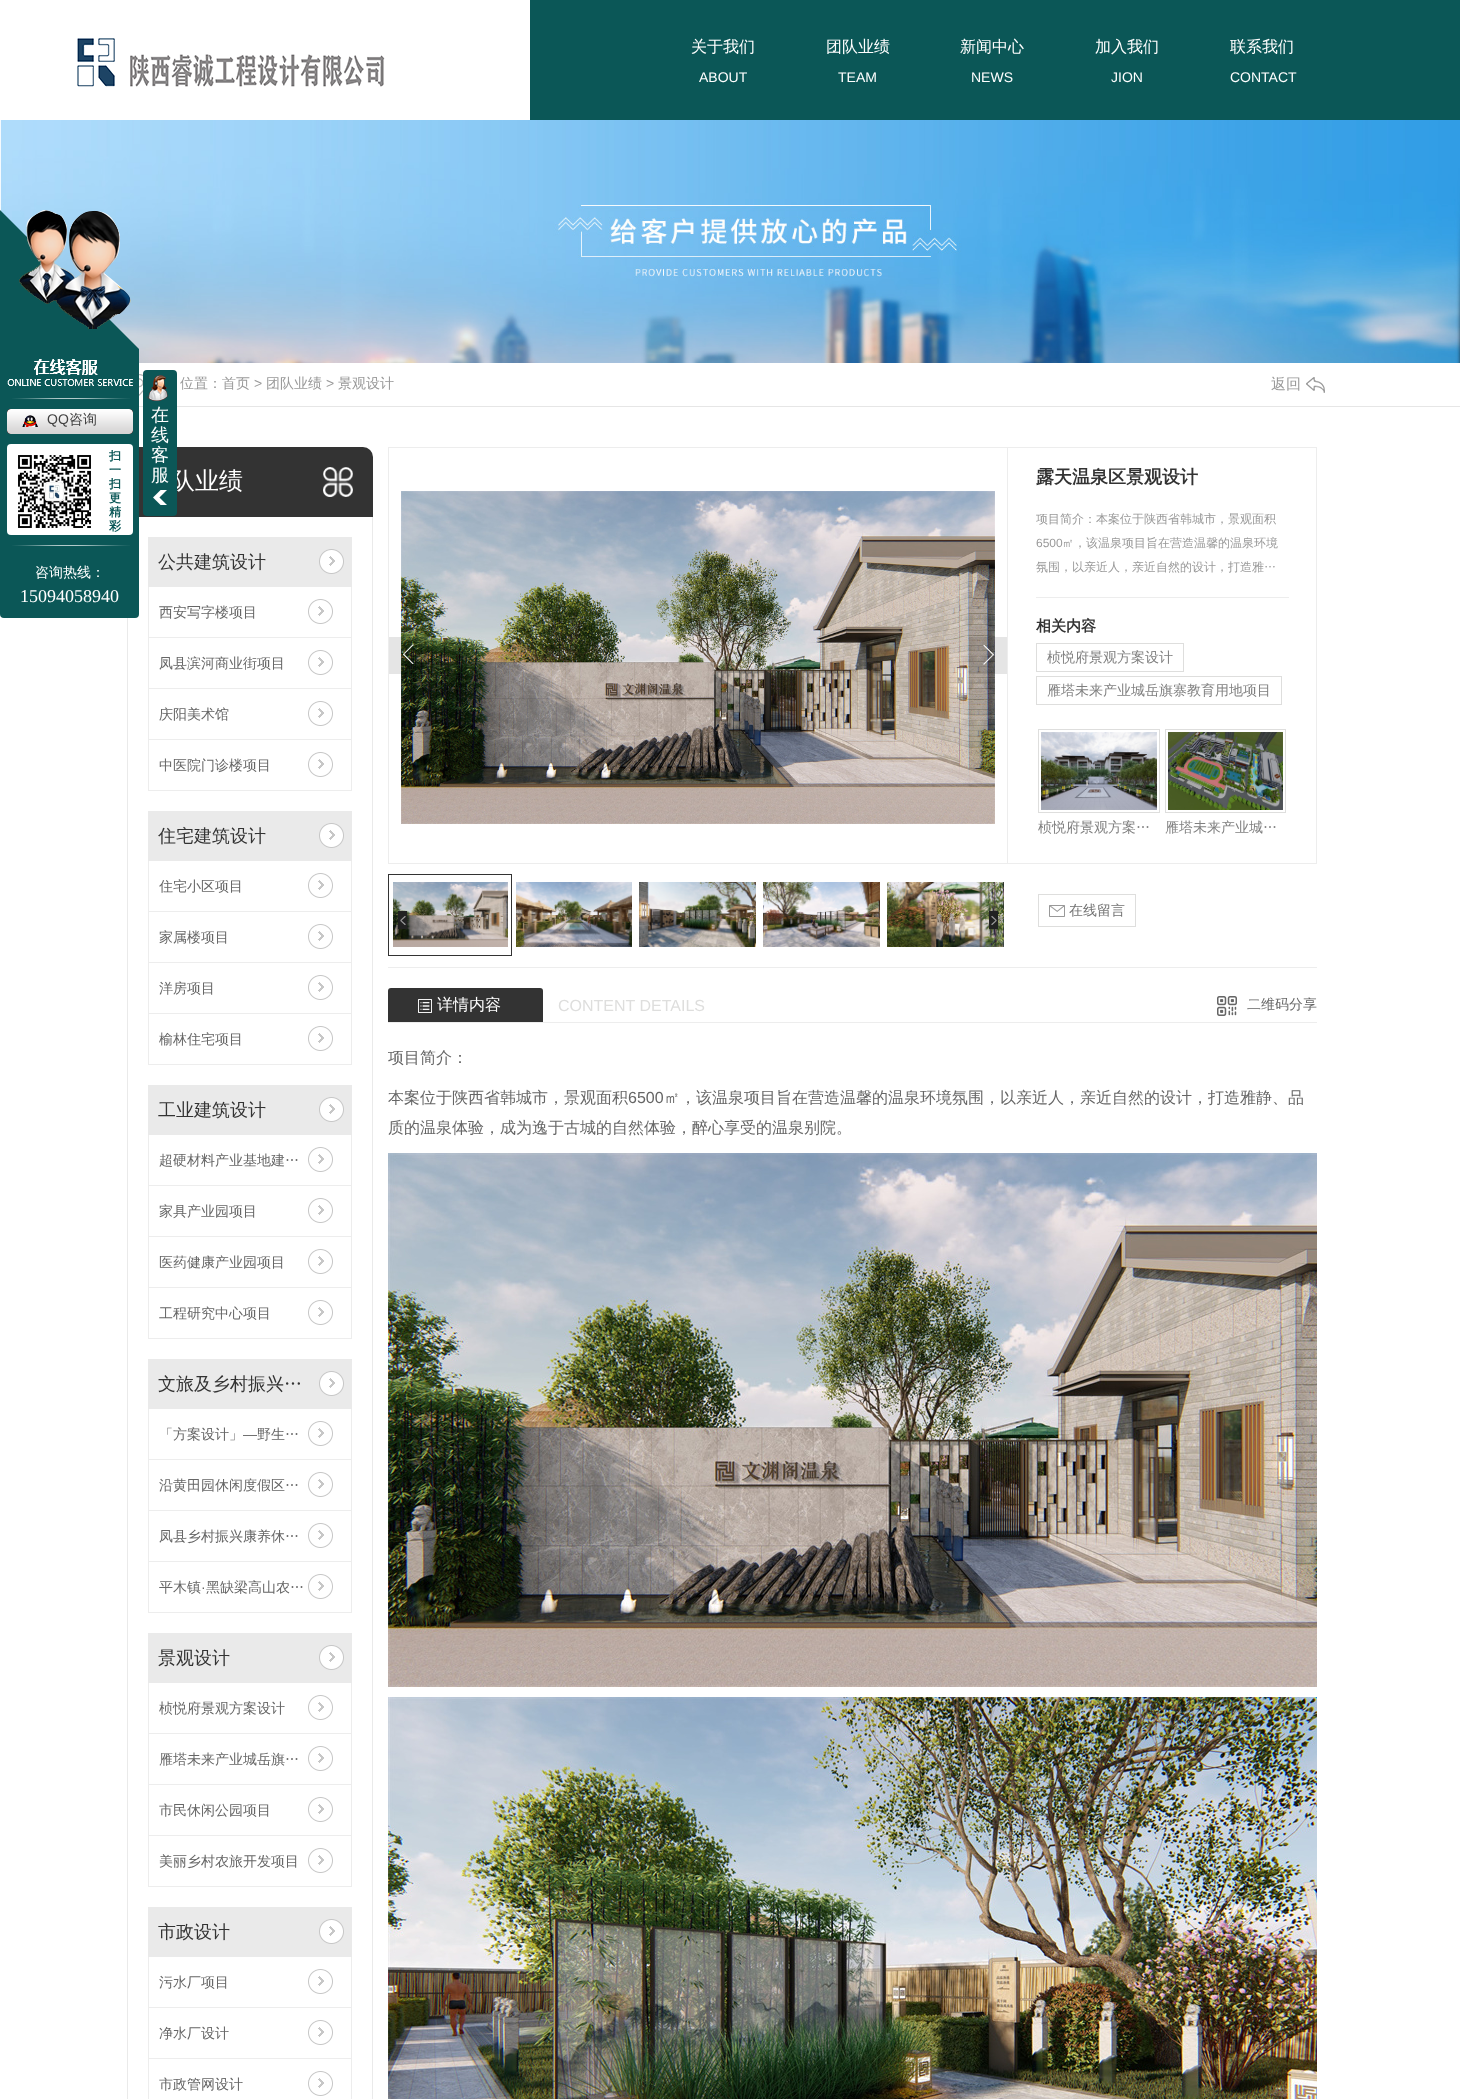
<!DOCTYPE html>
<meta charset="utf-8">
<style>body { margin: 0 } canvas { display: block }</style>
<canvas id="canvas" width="1460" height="2099"></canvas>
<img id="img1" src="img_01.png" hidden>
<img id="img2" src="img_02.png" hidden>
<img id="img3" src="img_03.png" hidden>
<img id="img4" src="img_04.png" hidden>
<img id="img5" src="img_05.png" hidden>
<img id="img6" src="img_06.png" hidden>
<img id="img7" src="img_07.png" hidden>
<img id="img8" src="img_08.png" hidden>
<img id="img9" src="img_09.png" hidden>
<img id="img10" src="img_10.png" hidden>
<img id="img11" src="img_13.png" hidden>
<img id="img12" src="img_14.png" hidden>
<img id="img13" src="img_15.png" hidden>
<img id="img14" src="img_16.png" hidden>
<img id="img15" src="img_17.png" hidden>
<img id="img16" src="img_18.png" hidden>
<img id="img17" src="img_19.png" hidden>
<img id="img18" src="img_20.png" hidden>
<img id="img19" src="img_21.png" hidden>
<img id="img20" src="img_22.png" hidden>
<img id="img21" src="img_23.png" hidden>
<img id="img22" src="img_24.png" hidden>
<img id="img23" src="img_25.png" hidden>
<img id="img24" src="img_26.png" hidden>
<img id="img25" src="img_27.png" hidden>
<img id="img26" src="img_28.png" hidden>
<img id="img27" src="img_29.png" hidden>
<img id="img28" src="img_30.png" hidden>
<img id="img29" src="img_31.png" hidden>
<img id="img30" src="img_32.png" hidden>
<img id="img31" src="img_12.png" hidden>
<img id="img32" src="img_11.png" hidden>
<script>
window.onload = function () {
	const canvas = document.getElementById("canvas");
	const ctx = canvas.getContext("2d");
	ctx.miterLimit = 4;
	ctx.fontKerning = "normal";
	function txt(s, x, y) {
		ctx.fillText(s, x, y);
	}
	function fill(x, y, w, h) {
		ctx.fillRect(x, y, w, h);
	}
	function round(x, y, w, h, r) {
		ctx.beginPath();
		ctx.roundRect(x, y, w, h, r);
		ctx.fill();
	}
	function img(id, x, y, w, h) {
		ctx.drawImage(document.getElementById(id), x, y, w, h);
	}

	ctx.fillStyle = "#FFFFFF";
	fill(0, 0, 1460, 2099);
	ctx.fillStyle = "#0B5757";
	fill(530, 0, 930, 120);
	img("img1", 77, 38, 308, 49);
	img("img2", 0, 120, 1460, 243);
	ctx.fillStyle = "#E6E6E6";
	fill(139, 406, 1321, 1);
	img("img3", 139, 374, 4, 22);
	img("img4", 1306, 377, 19, 16);
	ctx.fillStyle = "#0B5757";
	ctx.beginPath();
	ctx.moveTo(0, 210);
	ctx.lineTo(139, 349);
	ctx.lineTo(0, 349);
	ctx.closePath();
	ctx.fill();
	img("img5", 19, 210, 112, 119);
	ctx.fillStyle = "#333333";
	ctx.beginPath();
	ctx.roundRect(127, 447, 246, 70, [10, 10, 0, 0]);
	ctx.fill();
	ctx.fillStyle = "#0B5757";
	ctx.beginPath();
	ctx.roundRect(0, 349, 139, 269, [0, 0, 4, 4]);
	ctx.fill();
	img("img6", 7, 359, 126, 27);
	img("img7", 12, 398, 118, 1);
	img("img8", 7, 409, 126, 25);
	img("img9", 22, 415, 16, 12);
	ctx.fillStyle = "#FFFFFF";
	round(7, 444, 126, 91, 4);
	img("img10", 18, 455, 73, 73);
	img("img7", 12, 545, 118, 1);
	img("img11", 323, 467, 30, 30);
	ctx.fillStyle = "#EAEAEA";
	fill(372, 517, 1, 1582);
	fill(127, 618, 1, 1481);
	fill(148, 537, 204, 50);
	img("img12", 319, 549, 25, 25);
	ctx.fillStyle = "#EDEDED";
	fill(351, 587, 1, 204);
	fill(148, 637, 204, 1);
	fill(148, 587, 1, 51);
	img("img13", 308, 599, 25, 25);
	fill(148, 688, 204, 1);
	fill(148, 638, 1, 51);
	img("img13", 308, 650, 25, 25);
	fill(148, 739, 204, 1);
	fill(148, 689, 1, 51);
	img("img13", 308, 701, 25, 25);
	fill(148, 790, 204, 1);
	fill(148, 740, 1, 51);
	img("img13", 308, 752, 25, 25);
	ctx.fillStyle = "#EAEAEA";
	fill(148, 811, 204, 50);
	img("img12", 319, 823, 25, 25);
	ctx.fillStyle = "#EDEDED";
	fill(351, 861, 1, 204);
	fill(148, 911, 204, 1);
	fill(148, 861, 1, 51);
	img("img13", 308, 873, 25, 25);
	fill(148, 962, 204, 1);
	fill(148, 912, 1, 51);
	img("img13", 308, 924, 25, 25);
	fill(148, 1013, 204, 1);
	fill(148, 963, 1, 51);
	img("img13", 308, 975, 25, 25);
	fill(148, 1064, 204, 1);
	fill(148, 1014, 1, 51);
	img("img13", 308, 1026, 25, 25);
	ctx.fillStyle = "#EAEAEA";
	fill(148, 1085, 204, 50);
	img("img12", 319, 1097, 25, 25);
	ctx.fillStyle = "#EDEDED";
	fill(351, 1135, 1, 204);
	fill(148, 1185, 204, 1);
	fill(148, 1135, 1, 51);
	img("img13", 308, 1147, 25, 25);
	fill(148, 1236, 204, 1);
	fill(148, 1186, 1, 51);
	img("img13", 308, 1198, 25, 25);
	fill(148, 1287, 204, 1);
	fill(148, 1237, 1, 51);
	img("img13", 308, 1249, 25, 25);
	fill(148, 1338, 204, 1);
	fill(148, 1288, 1, 51);
	img("img13", 308, 1300, 25, 25);
	ctx.fillStyle = "#EAEAEA";
	fill(148, 1359, 204, 50);
	img("img12", 319, 1371, 25, 25);
	ctx.fillStyle = "#EDEDED";
	fill(351, 1409, 1, 204);
	fill(148, 1459, 204, 1);
	fill(148, 1409, 1, 51);
	img("img13", 308, 1421, 25, 25);
	fill(148, 1510, 204, 1);
	fill(148, 1460, 1, 51);
	img("img13", 308, 1472, 25, 25);
	fill(148, 1561, 204, 1);
	fill(148, 1511, 1, 51);
	img("img13", 308, 1523, 25, 25);
	fill(148, 1612, 204, 1);
	fill(148, 1562, 1, 51);
	img("img13", 308, 1574, 25, 25);
	ctx.fillStyle = "#EAEAEA";
	fill(148, 1633, 204, 50);
	img("img12", 319, 1645, 25, 25);
	ctx.fillStyle = "#EDEDED";
	fill(351, 1683, 1, 204);
	fill(148, 1733, 204, 1);
	fill(148, 1683, 1, 51);
	img("img13", 308, 1695, 25, 25);
	fill(148, 1784, 204, 1);
	fill(148, 1734, 1, 51);
	img("img13", 308, 1746, 25, 25);
	fill(148, 1835, 204, 1);
	fill(148, 1785, 1, 51);
	img("img13", 308, 1797, 25, 25);
	fill(148, 1886, 204, 1);
	fill(148, 1836, 1, 51);
	img("img13", 308, 1848, 25, 25);
	ctx.fillStyle = "#EAEAEA";
	fill(148, 1907, 204, 50);
	img("img12", 319, 1919, 25, 25);
	ctx.fillStyle = "#EDEDED";
	fill(351, 1957, 1, 142);
	fill(148, 2007, 204, 1);
	fill(148, 1957, 1, 51);
	img("img13", 308, 1969, 25, 25);
	fill(148, 2058, 204, 1);
	fill(148, 2008, 1, 91);
	img("img13", 308, 2020, 25, 25);
	img("img13", 308, 2071, 25, 25);
	ctx.strokeStyle = "#EDEDED";
	ctx.strokeRect(388.5, 447.5, 619, 416);
	img("img14", 401, 491, 594, 333);
	ctx.fillStyle = "rgba(0, 0, 0, 0.1)";
	fill(389, 637, 38, 37);
	img("img15", 402, 644, 12, 20);
	fill(969, 637, 38, 37);
	img("img16", 983, 645, 11, 20);
	ctx.strokeStyle = "#333333";
	ctx.strokeRect(388.5, 874.5, 123, 81);
	img("img17", 393, 882, 115, 65);
	img("img18", 516, 882, 116, 65);
	img("img19", 639, 882, 117, 65);
	img("img20", 763, 882, 117, 65);
	img("img21", 887, 882, 117, 65);
	img("img22", 398, 911, 9, 18);
	img("img23", 989, 911, 9, 18);
	ctx.fillStyle = "#EDEDED";
	fill(1008, 447, 309, 1);
	fill(1316, 447, 1, 417);
	fill(1008, 863, 309, 1);
	fill(1036, 597, 253, 1);
	ctx.strokeStyle = "#DEDEDD";
	ctx.strokeRect(1036.5, 643.5, 147, 28);
	ctx.strokeRect(1036.5, 676.5, 245, 28);
	ctx.strokeRect(1038.5, 729.5, 121, 83);
	img("img24", 1041, 732, 116, 78);
	ctx.strokeRect(1165.5, 729.5, 120, 83);
	img("img25", 1168, 732, 115, 78);
	ctx.strokeRect(1038.5, 894.5, 97, 32);
	img("img26", 1049, 905, 16, 12);
	fill(388, 967, 929, 1);
	fill(388, 1022, 929, 1);
	ctx.fillStyle = "#333333";
	ctx.beginPath();
	ctx.roundRect(388, 988, 155, 34, [3, 3, 0, 0]);
	ctx.fill();
	img("img27", 418, 999, 14, 14);
	img("img28", 1217, 996, 20, 20);
	img("img29", 388, 1153, 929, 534);
	img("img30", 388, 1697, 929, 402);
	ctx.font = "500 16px WenQuanYi Zen Hei";
	ctx.fillStyle = "#FFFFFF";
	txt("关于我们", 691, 52);
	ctx.font = "14px Liberation Sans";
	txt("ABOUT", 699, 82);
	ctx.font = "500 16px WenQuanYi Zen Hei";
	txt("团队业绩", 826, 52);
	ctx.font = "14px Liberation Sans";
	txt("TEAM", 838, 82);
	ctx.font = "500 16px WenQuanYi Zen Hei";
	txt("新闻中心", 960, 52);
	ctx.font = "14px Liberation Sans";
	txt("NEWS", 971, 82);
	ctx.font = "500 16px WenQuanYi Zen Hei";
	txt("加入我们", 1095, 52);
	ctx.font = "14px Liberation Sans";
	txt("JION", 1111, 82);
	ctx.font = "500 16px WenQuanYi Zen Hei";
	txt("联系我们", 1230, 52);
	ctx.font = "14px Liberation Sans";
	txt("CONTACT", 1230, 82);
	ctx.font = "500 14px WenQuanYi Zen Hei";
	ctx.fillStyle = "#999999";
	txt("位置：首页", 180, 388);
	ctx.font = "14px Liberation Sans";
	txt(">", 254, 388);
	ctx.font = "500 14px WenQuanYi Zen Hei";
	txt("团队业绩", 266, 388);
	ctx.font = "14px Liberation Sans";
	txt(">", 326, 388);
	ctx.font = "500 14px WenQuanYi Zen Hei";
	txt("景观设计", 338, 388);
	ctx.font = "500 15px WenQuanYi Zen Hei";
	txt("返回", 1271, 389);
	ctx.font = "14px Liberation Sans";
	ctx.fillStyle = "#404040";
	txt("QQ", 47, 424);
	ctx.font = "500 14px WenQuanYi Zen Hei";
	txt("咨询", 69, 424);
	ctx.font = "bold 12px WenQuanYi Zen Hei";
	ctx.fillStyle = "#0B5757";
	txt("扫", 109, 460);
	txt("一", 109, 474);
	txt("扫", 109, 488);
	txt("更", 109, 502);
	txt("精", 109, 516);
	txt("彩", 109, 530);
	ctx.font = "500 14px WenQuanYi Zen Hei";
	ctx.fillStyle = "#FFFFFF";
	txt("咨询热线：", 35, 577);
	ctx.font = "18px Liberation Serif";
	txt("15094058940", 20, 602);
	ctx.font = "500 24px WenQuanYi Zen Hei";
	txt("队业绩", 171, 489);
	ctx.fillStyle = "#0B5757";
	round(143, 370, 34, 146, 4);
	ctx.font = "500 18px WenQuanYi Zen Hei";
	ctx.fillStyle = "#FFFFFF";
	txt("服", 151, 481);
	txt("客", 151, 461);
	txt("线", 151, 441);
	txt("在", 151, 421);
	img("img31", 146, 375, 22, 26);
	img("img32", 153, 490, 14, 15);
	ctx.fillStyle = "#333333";
	txt("公共建筑设计", 158, 568);
	ctx.font = "500 14px WenQuanYi Zen Hei";
	ctx.fillStyle = "#666666";
	txt("西安写字楼项目", 159, 617);
	txt("凤县滨河商业街项目", 159, 668);
	txt("庆阳美术馆", 159, 719);
	txt("中医院门诊楼项目", 159, 770);
	ctx.font = "500 18px WenQuanYi Zen Hei";
	ctx.fillStyle = "#333333";
	txt("住宅建筑设计", 158, 842);
	ctx.font = "500 14px WenQuanYi Zen Hei";
	ctx.fillStyle = "#666666";
	txt("住宅小区项目", 159, 891);
	txt("家属楼项目", 159, 942);
	txt("洋房项目", 159, 993);
	txt("榆林住宅项目", 159, 1044);
	ctx.font = "500 18px WenQuanYi Zen Hei";
	ctx.fillStyle = "#333333";
	txt("工业建筑设计", 158, 1116);
	ctx.font = "500 14px WenQuanYi Zen Hei";
	ctx.fillStyle = "#666666";
	txt("超硬材料产业基地建…", 159, 1165);
	txt("家具产业园项目", 159, 1216);
	txt("医药健康产业园项目", 159, 1267);
	txt("工程研究中心项目", 159, 1318);
	ctx.font = "500 18px WenQuanYi Zen Hei";
	ctx.fillStyle = "#333333";
	txt("文旅及乡村振兴…", 158, 1390);
	ctx.font = "500 14px WenQuanYi Zen Hei";
	ctx.fillStyle = "#666666";
	txt("「方案设计」", 159, 1439);
	ctx.font = "14px Liberation Sans";
	txt("—", 243, 1439);
	ctx.font = "500 14px WenQuanYi Zen Hei";
	txt("野生…", 257, 1439);
	txt("沿黄田园休闲度假区…", 159, 1490);
	txt("凤县乡村振兴康养休…", 159, 1541);
	txt("平木镇", 159, 1592);
	ctx.font = "14px Liberation Sans";
	txt("·", 201, 1592);
	ctx.font = "500 14px WenQuanYi Zen Hei";
	txt("黑缺梁高山农…", 206, 1592);
	ctx.font = "500 18px WenQuanYi Zen Hei";
	ctx.fillStyle = "#333333";
	txt("景观设计", 158, 1664);
	ctx.font = "500 14px WenQuanYi Zen Hei";
	ctx.fillStyle = "#666666";
	txt("桢悦府景观方案设计", 159, 1713);
	txt("雁塔未来产业城岳旗…", 159, 1764);
	txt("市民休闲公园项目", 159, 1815);
	txt("美丽乡村农旅开发项目", 159, 1866);
	ctx.font = "500 18px WenQuanYi Zen Hei";
	ctx.fillStyle = "#333333";
	txt("市政设计", 158, 1938);
	ctx.font = "500 14px WenQuanYi Zen Hei";
	ctx.fillStyle = "#666666";
	txt("污水厂项目", 159, 1987);
	txt("净水厂设计", 159, 2038);
	txt("市政管网设计", 159, 2089);
	ctx.font = "bold 18px WenQuanYi Zen Hei";
	ctx.fillStyle = "#333333";
	txt("露天温泉区景观设计", 1036, 483);
	ctx.save();
	ctx.beginPath();
	ctx.rect(1036, 507, 253, 70);
	ctx.clip();
	ctx.font = "500 12px WenQuanYi Zen Hei";
	ctx.fillStyle = "#999999";
	txt("项目简介：本案位于陕西省韩城市，景观面积", 1036, 523);
	ctx.restore();
	ctx.font = "12px Liberation Sans";
	ctx.fillStyle = "#999999";
	txt("6500", 1036, 547);
	ctx.font = "500 12px WenQuanYi Zen Hei";
	txt("㎡，该温泉项目旨在营造温馨的温泉环境", 1062, 547);
	txt("氛围，以亲近人，亲近自然的设计，打造雅…", 1036, 571);
	ctx.font = "bold 15px WenQuanYi Zen Hei";
	ctx.fillStyle = "#333333";
	txt("相关内容", 1036, 631);
	ctx.font = "500 14px WenQuanYi Zen Hei";
	ctx.fillStyle = "#808080";
	txt("桢悦府景观方案设计", 1047, 662);
	txt("雁塔未来产业城岳旗寨教育用地项目", 1047, 695);
	txt("桢悦府景观方案…", 1038, 832);
	txt("雁塔未来产业城…", 1165, 832);
	ctx.fillStyle = "#737373";
	txt("在线留言", 1069, 915);
	ctx.font = "500 16px WenQuanYi Zen Hei";
	ctx.fillStyle = "#FFFFFF";
	txt("详情内容", 437, 1010);
	ctx.font = "16px Liberation Sans";
	ctx.fillStyle = "#DEDEDD";
	txt("CONTENT DETAILS", 558, 1011);
	ctx.font = "500 14px WenQuanYi Zen Hei";
	ctx.fillStyle = "#666666";
	txt("二维码分享", 1247, 1009);
	ctx.font = "500 16px WenQuanYi Zen Hei";
	txt("项目简介：", 388, 1063);
	txt("本案位于陕西省韩城市，景观面积", 388, 1103);
	ctx.font = "16px Liberation Sans";
	txt("6500", 628, 1103);
	ctx.font = "500 16px WenQuanYi Zen Hei";
	txt("㎡，该温泉项目旨在营造温馨的温泉环境氛围，以亲近人，亲近自然的设计，打造雅静、品", 664, 1103);
	txt("质的温泉体验，成为逸于古城的自然体验，醉心享受的温泉别院。", 388, 1133);
};
</script>
